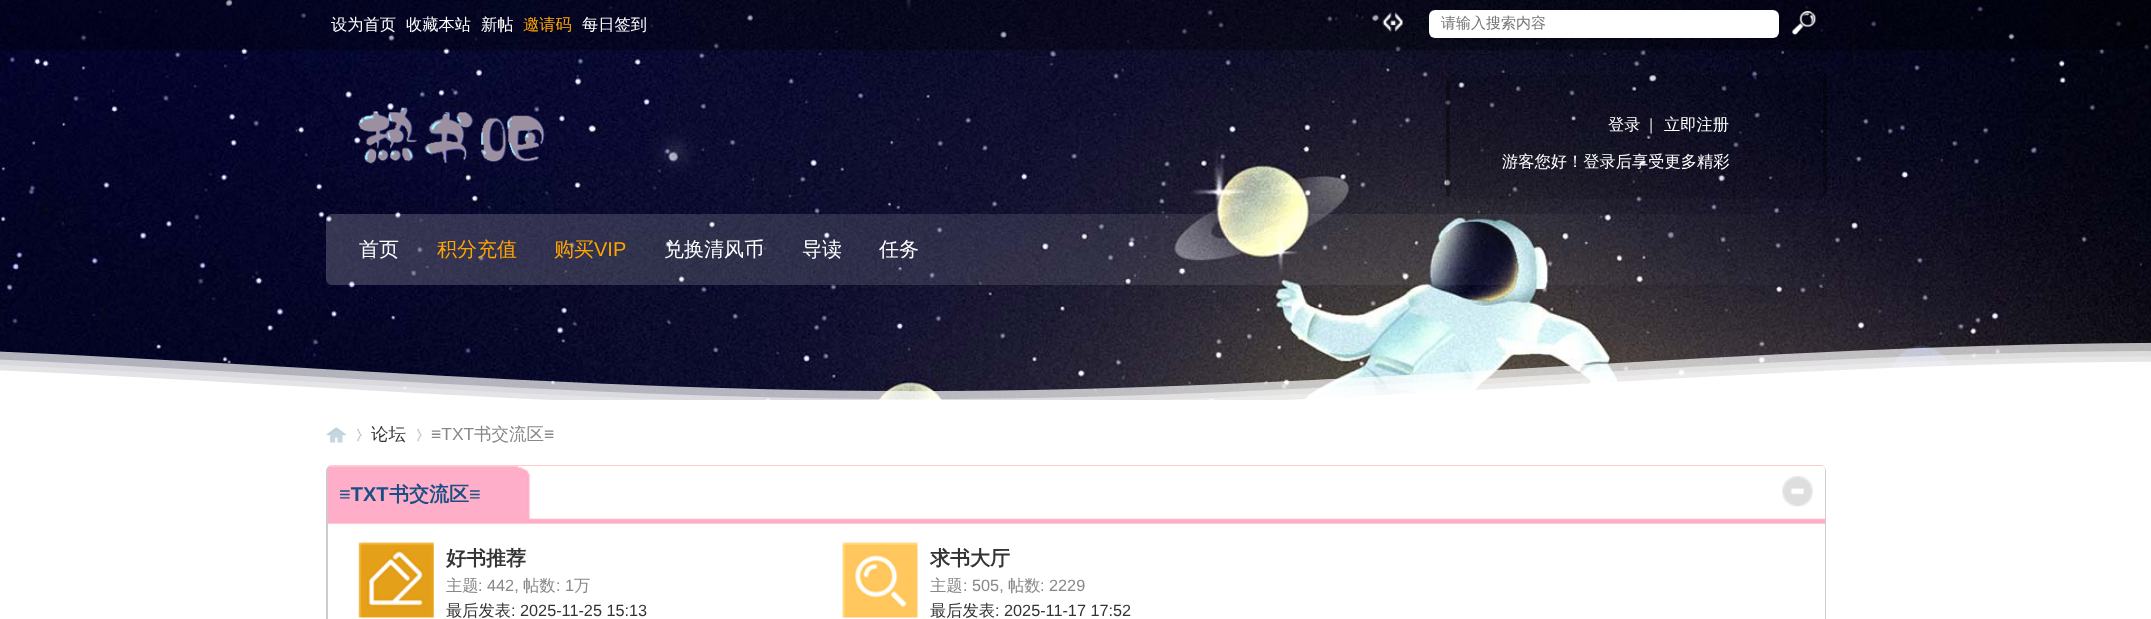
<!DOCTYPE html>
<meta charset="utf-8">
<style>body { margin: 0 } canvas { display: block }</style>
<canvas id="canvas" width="2151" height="619"></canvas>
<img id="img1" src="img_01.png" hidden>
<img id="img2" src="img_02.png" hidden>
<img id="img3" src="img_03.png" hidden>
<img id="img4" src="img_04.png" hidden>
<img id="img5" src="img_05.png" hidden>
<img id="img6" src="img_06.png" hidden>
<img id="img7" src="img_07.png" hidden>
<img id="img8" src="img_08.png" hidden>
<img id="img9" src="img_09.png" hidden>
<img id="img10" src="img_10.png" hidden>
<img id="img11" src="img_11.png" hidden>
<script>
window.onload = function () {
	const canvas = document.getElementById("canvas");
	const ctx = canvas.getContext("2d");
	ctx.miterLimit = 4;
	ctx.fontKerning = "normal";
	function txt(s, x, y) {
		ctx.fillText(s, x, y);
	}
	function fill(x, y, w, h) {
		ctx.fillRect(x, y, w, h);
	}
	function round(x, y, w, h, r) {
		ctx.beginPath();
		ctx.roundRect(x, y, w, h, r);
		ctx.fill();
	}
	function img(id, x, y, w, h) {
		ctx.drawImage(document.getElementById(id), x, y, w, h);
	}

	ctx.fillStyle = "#FFFFFF";
	fill(0, 0, 2151, 619);
	img("img1", 0, 0, 2151, 400);
	ctx.fillStyle = "rgba(0, 0, 0, 0.3)";
	fill(0, 0, 2151, 50);
	img("img2", 1382, 12, 21, 20);
	ctx.fillStyle = "#FFFFFF";
	round(1429, 10, 350, 28, 6);
	img("img3", 1792, 11, 24, 24);
	img("img4", 358, 107, 187, 57);
	ctx.fillStyle = "rgba(0, 0, 0, 0.1)";
	round(1446, 75, 380, 124, 6);
	ctx.fillStyle = "rgba(0, 0, 0, 0.3)";
	fill(1823, 79, 4, 117);
	fill(1446, 79, 4, 117);
	img("img5", 0, 342, 2151, 58);
	img("img6", 326, 427, 21, 16);
	img("img7", 357, 428, 5, 14);
	img("img7", 417, 428, 5, 14);
	ctx.fillStyle = "#CDCDCD";
	ctx.beginPath();
	ctx.moveTo(332, 465);
	ctx.lineTo(1820, 465);
	ctx.bezierCurveTo(1823, 465, 1826, 468, 1826, 471);
	ctx.lineTo(1826, 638);
	ctx.bezierCurveTo(1826, 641, 1823, 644, 1820, 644);
	ctx.lineTo(332, 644);
	ctx.bezierCurveTo(329, 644, 326, 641, 326, 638);
	ctx.lineTo(326, 471);
	ctx.bezierCurveTo(326, 468, 329, 465, 332, 465);
	ctx.closePath();
	ctx.moveTo(332, 465);
	ctx.lineTo(1820, 465);
	ctx.bezierCurveTo(1823, 465, 1825, 468, 1825, 471);
	ctx.lineTo(1825, 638);
	ctx.bezierCurveTo(1825, 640, 1823, 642, 1820, 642);
	ctx.lineTo(332, 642);
	ctx.bezierCurveTo(330, 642, 328, 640, 328, 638);
	ctx.lineTo(328, 471);
	ctx.bezierCurveTo(328, 468, 330, 465, 332, 465);
	ctx.closePath();
	ctx.fill("evenodd");
	ctx.fillStyle = "#FFFFFF";
	round(328, 465, 1497, 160, 6);
	img("img8", 327, 466, 1498, 58);
	ctx.fillStyle = "#FFCCCC";
	fill(330, 465, 1493, 1);
	fill(328, 523, 1497, 1);
	img("img9", 1782, 476, 31, 31);
	img("img10", 358, 542, 76, 76);
	img("img11", 842, 542, 76, 76);
	ctx.font = "500 16.25px WenQuanYi Zen Hei";
	ctx.fillStyle = "#FFFFFF";
	txt("设为首页", 331, 30);
	txt("收藏本站", 406, 30);
	txt("新帖", 481, 30);
	ctx.fillStyle = "#FFA500";
	txt("邀请码", 523, 30);
	ctx.fillStyle = "#FFFFFF";
	txt("每日签到", 582, 30);
	ctx.font = "500 15px WenQuanYi Zen Hei";
	ctx.fillStyle = "#757575";
	txt("请输入搜索内容", 1441, 28);
	ctx.font = "500 16.25px WenQuanYi Zen Hei";
	ctx.fillStyle = "#FFFFFF";
	txt("登录", 1608, 130);
	ctx.font = "16.25px Liberation Sans";
	ctx.fillStyle = "#CCCCCC";
	txt("|", 1649, 130);
	ctx.font = "500 16.25px WenQuanYi Zen Hei";
	ctx.fillStyle = "#FFFFFF";
	txt("立即注册", 1664, 130);
	txt("游客您好！登录后享受更多精彩", 1502, 167);
	ctx.font = "500 20px WenQuanYi Zen Hei";
	txt("首页", 359, 256);
	ctx.fillStyle = "#FFA500";
	txt("积分充值", 437, 256);
	txt("购买", 554, 256);
	ctx.font = "20px Liberation Sans";
	txt("VIP", 594, 256);
	ctx.font = "500 20px WenQuanYi Zen Hei";
	ctx.fillStyle = "#FFFFFF";
	txt("兑换清风币", 664, 256);
	txt("导读", 802, 256);
	txt("任务", 879, 256);
	ctx.font = "500 17.5px WenQuanYi Zen Hei";
	ctx.fillStyle = "#333333";
	txt("论坛", 371, 440);
	ctx.font = "17.5px Liberation Sans";
	ctx.fillStyle = "#888888";
	txt("≡TXT", 431, 440);
	ctx.font = "500 17.5px WenQuanYi Zen Hei";
	txt("书交流区", 474, 440);
	ctx.font = "17.5px Liberation Sans";
	txt("≡", 544, 440);
	ctx.font = "bold 20px Liberation Sans";
	ctx.fillStyle = "#1A4F84";
	txt("≡TXT", 339, 501);
	ctx.font = "bold 20px WenQuanYi Zen Hei";
	txt("书交流区", 389, 501);
	ctx.font = "bold 20px Liberation Sans";
	txt("≡", 469, 501);
	ctx.font = "bold 20px WenQuanYi Zen Hei";
	ctx.fillStyle = "#333333";
	txt("好书推荐", 446, 565);
	ctx.font = "500 16.25px WenQuanYi Zen Hei";
	ctx.fillStyle = "#888888";
	txt("主题", 446, 591);
	ctx.font = "16.25px Liberation Sans";
	txt(": 442,", 478, 591);
	ctx.font = "500 16.25px WenQuanYi Zen Hei";
	txt("帖数", 523, 591);
	ctx.font = "16.25px Liberation Sans";
	txt(": 1", 556, 591);
	ctx.font = "500 16.25px WenQuanYi Zen Hei";
	txt("万", 574, 591);
	ctx.fillStyle = "#333333";
	txt("最后发表", 446, 616);
	ctx.font = "16.25px Liberation Sans";
	txt(": 2025-11-25 15:13", 511, 616);
	ctx.font = "bold 20px WenQuanYi Zen Hei";
	txt("求书大厅", 930, 565);
	ctx.font = "500 16.25px WenQuanYi Zen Hei";
	ctx.fillStyle = "#888888";
	txt("主题", 930, 591);
	ctx.font = "16.25px Liberation Sans";
	txt(": 505,", 963, 591);
	ctx.font = "500 16.25px WenQuanYi Zen Hei";
	txt("帖数", 1008, 591);
	ctx.font = "16.25px Liberation Sans";
	txt(": 2229", 1040, 591);
	ctx.font = "500 16.25px WenQuanYi Zen Hei";
	ctx.fillStyle = "#333333";
	txt("最后发表", 930, 616);
	ctx.font = "16.25px Liberation Sans";
	txt(": 2025-11-17 17:52", 995, 616);
};
</script>
